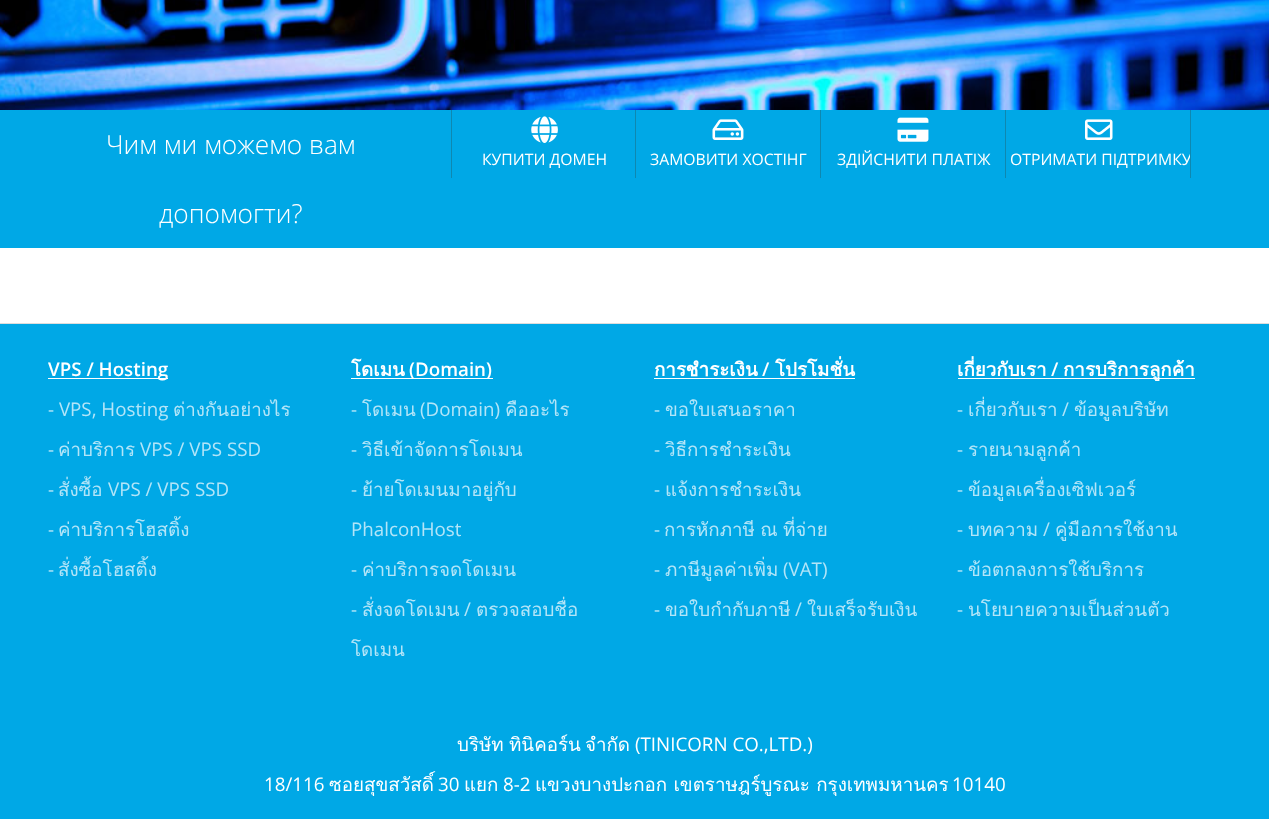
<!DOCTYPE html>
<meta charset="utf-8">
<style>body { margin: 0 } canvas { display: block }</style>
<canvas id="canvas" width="1269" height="819"></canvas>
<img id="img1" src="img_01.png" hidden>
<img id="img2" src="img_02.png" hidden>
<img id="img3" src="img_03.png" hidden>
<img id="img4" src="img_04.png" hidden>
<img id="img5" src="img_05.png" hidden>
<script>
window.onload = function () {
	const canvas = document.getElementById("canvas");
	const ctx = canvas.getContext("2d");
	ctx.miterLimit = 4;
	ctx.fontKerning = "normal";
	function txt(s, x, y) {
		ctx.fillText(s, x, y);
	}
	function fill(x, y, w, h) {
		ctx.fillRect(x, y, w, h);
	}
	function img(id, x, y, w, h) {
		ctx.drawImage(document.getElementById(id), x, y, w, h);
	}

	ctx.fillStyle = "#FFFFFF";
	fill(0, 0, 1269, 819);
	img("img1", 0, 0, 1269, 110);
	ctx.fillStyle = "#00A8E6";
	fill(0, 110, 1269, 138);
	ctx.fillStyle = "#0E88B0";
	fill(635, 110, 1, 68);
	fill(451, 110, 1, 68);
	img("img2", 531, 116, 27, 27);
	fill(820, 110, 1, 68);
	img("img3", 712, 119, 32, 21);
	fill(1005, 110, 1, 68);
	img("img4", 897, 117, 32, 25);
	fill(1190, 110, 1, 68);
	img("img5", 1085, 119, 28, 21);
	ctx.fillStyle = "#00A8E6";
	fill(0, 324, 1269, 495);
	ctx.fillStyle = "#DDDDDD";
	fill(0, 323, 1269, 1);
	ctx.fillStyle = "#FFFFFF";
	fill(48, 378, 120, 1);
	fill(351, 378, 142, 1);
	fill(654, 378, 201, 1);
	fill(958, 378, 237, 1);
	ctx.font = "300 26.25px Open Sans";
	txt("Чим ми можемо вам", 106, 154);
	txt("допомогти?", 159, 223);
	ctx.font = "15.75px Open Sans";
	txt("КУПИТИ ДОМЕН", 482, 165);
	txt("ЗАМОВИТИ ХОСТІНГ", 650, 165);
	txt("ЗДІЙСНИТИ ПЛАТІЖ", 837, 165);
	ctx.save();
	ctx.beginPath();
	ctx.rect(1006, 110, 184, 68);
	ctx.clip();
	txt("ОТРИМАТИ ПІДТРИМКУ", 1010, 165);
	ctx.restore();
	ctx.font = "600 18.75px Open Sans";
	txt("VPS / Hosting", 48, 376);
	ctx.font = "18.75px Open Sans";
	ctx.fillStyle = "#B3E5F8";
	txt("- VPS, Hosting", 48, 416);
	ctx.font = "18.75px Loma";
	txt("ต่างกันอย่างไร", 173, 416);
	ctx.font = "18.75px Open Sans";
	txt("-", 48, 456);
	ctx.font = "18.75px Loma";
	txt("ค่าบริการ", 58, 456);
	ctx.font = "18.75px Open Sans";
	txt("VPS / VPS SSD", 140, 456);
	txt("-", 48, 496);
	ctx.font = "18.75px Loma";
	txt("สั่งซื้อ", 58, 496);
	ctx.font = "18.75px Open Sans";
	txt("VPS / VPS SSD", 108, 496);
	txt("-", 48, 536);
	ctx.font = "18.75px Loma";
	txt("ค่าบริการโฮสติ้ง", 58, 536);
	ctx.font = "18.75px Open Sans";
	txt("-", 48, 576);
	ctx.font = "18.75px Loma";
	txt("สั่งซื้อโฮสติ้ง", 58, 576);
	ctx.font = "bold 18.75px Loma";
	ctx.fillStyle = "#FFFFFF";
	txt("โดเมน", 351, 376);
	ctx.font = "600 18.75px Open Sans";
	txt("(Domain)", 409, 376);
	ctx.font = "18.75px Open Sans";
	ctx.fillStyle = "#B3E5F8";
	txt("-", 351, 416);
	ctx.font = "18.75px Loma";
	txt("โดเมน", 362, 416);
	ctx.font = "18.75px Open Sans";
	txt("(Domain)", 420, 416);
	ctx.font = "18.75px Loma";
	txt("คืออะไร", 505, 416);
	ctx.font = "18.75px Open Sans";
	txt("-", 351, 456);
	ctx.font = "18.75px Loma";
	txt("วิธีเข้าจัดการโดเมน", 362, 456);
	ctx.font = "18.75px Open Sans";
	txt("-", 351, 496);
	ctx.font = "18.75px Loma";
	txt("ย้ายโดเมนมาอยู่กับ", 362, 496);
	ctx.font = "18.75px Open Sans";
	txt("PhalconHost", 351, 536);
	txt("-", 351, 576);
	ctx.font = "18.75px Loma";
	txt("ค่าบริการจดโดเมน", 362, 576);
	ctx.font = "18.75px Open Sans";
	txt("-", 351, 616);
	ctx.font = "18.75px Loma";
	txt("สั่งจดโดเมน", 362, 616);
	ctx.font = "18.75px Open Sans";
	txt("/", 464, 616);
	ctx.font = "18.75px Loma";
	txt("ตรวจสอบชื่อ", 476, 616);
	txt("โดเมน", 351, 656);
	ctx.font = "bold 18.75px Loma";
	ctx.fillStyle = "#FFFFFF";
	txt("การชำระเงิน", 654, 376);
	ctx.font = "600 18.75px Open Sans";
	txt("/", 762, 376);
	ctx.font = "bold 18.75px Loma";
	txt("โปรโมชั่น", 775, 376);
	ctx.font = "18.75px Open Sans";
	ctx.fillStyle = "#B3E5F8";
	txt("-", 654, 416);
	ctx.font = "18.75px Loma";
	txt("ขอใบเสนอราคา", 665, 416);
	ctx.font = "18.75px Open Sans";
	txt("-", 654, 456);
	ctx.font = "18.75px Loma";
	txt("วิธีการชำระเงิน", 665, 456);
	ctx.font = "18.75px Open Sans";
	txt("-", 654, 496);
	ctx.font = "18.75px Loma";
	txt("แจ้งการชำระเงิน", 665, 496);
	ctx.font = "18.75px Open Sans";
	txt("-", 654, 536);
	ctx.wordSpacing = "-1px";
	ctx.font = "18.75px Loma";
	txt("การหักภาษี ณ ที่จ่าย", 664, 536);
	ctx.wordSpacing = "0px";
	ctx.font = "18.75px Open Sans";
	txt("-", 654, 576);
	ctx.font = "18.75px Loma";
	txt("ภาษีมูลค่าเพิ่ม", 665, 576);
	ctx.font = "18.75px Open Sans";
	txt("(VAT)", 783, 576);
	txt("-", 654, 616);
	ctx.font = "18.75px Loma";
	txt("ขอใบกำกับภาษี", 665, 616);
	ctx.font = "18.75px Open Sans";
	txt("/", 795, 616);
	ctx.font = "18.75px Loma";
	txt("ใบเสร็จรับเงิน", 807, 616);
	ctx.font = "bold 18.75px Loma";
	ctx.fillStyle = "#FFFFFF";
	txt("เกี่ยวกับเรา", 957, 376);
	ctx.font = "600 18.75px Open Sans";
	txt("/", 1051, 376);
	ctx.font = "bold 18.75px Loma";
	txt("การบริการลูกค้า", 1063, 376);
	ctx.font = "18.75px Open Sans";
	ctx.fillStyle = "#B3E5F8";
	txt("-", 957, 416);
	ctx.font = "18.75px Loma";
	txt("เกี่ยวกับเรา", 968, 416);
	ctx.font = "18.75px Open Sans";
	txt("/", 1062, 416);
	ctx.font = "18.75px Loma";
	txt("ข้อมูลบริษัท", 1074, 416);
	ctx.font = "18.75px Open Sans";
	txt("-", 957, 456);
	ctx.font = "18.75px Loma";
	txt("รายนามลูกค้า", 968, 456);
	ctx.font = "18.75px Open Sans";
	txt("-", 957, 496);
	ctx.font = "18.75px Loma";
	txt("ข้อมูลเครื่องเซิฟเวอร์", 968, 496);
	ctx.font = "18.75px Open Sans";
	txt("-", 957, 536);
	ctx.font = "18.75px Loma";
	txt("บทความ", 968, 536);
	ctx.font = "18.75px Open Sans";
	txt("/", 1043, 536);
	ctx.font = "18.75px Loma";
	txt("คู่มือการใช้งาน", 1055, 536);
	ctx.font = "18.75px Open Sans";
	txt("-", 957, 576);
	ctx.font = "18.75px Loma";
	txt("ข้อตกลงการใช้บริการ", 968, 576);
	ctx.font = "18.75px Open Sans";
	txt("-", 957, 616);
	ctx.font = "18.75px Loma";
	txt("นโยบายความเป็นส่วนตัว", 968, 616);
	ctx.fillStyle = "#FFFFFF";
	txt("บริษัท", 457, 751);
	txt("ทินิคอร์น", 509, 751);
	txt("จำกัด", 585, 751);
	ctx.font = "18.75px Open Sans";
	txt("(TINICORN CO.,LTD.)", 635, 751);
	txt("18/116", 264, 791);
	ctx.font = "18.75px Loma";
	txt("ซอยสุขสวัสดิ์", 329, 791);
	ctx.font = "18.75px Open Sans";
	txt("30", 438, 791);
	ctx.font = "18.75px Loma";
	txt("แยก", 464, 791);
	ctx.font = "18.75px Open Sans";
	txt("8-2", 503, 791);
	ctx.font = "18.75px Loma";
	txt("แขวงบางปะกอก เขตราษฎร์บูรณะ กรุงเทพมหานคร", 535, 791);
	ctx.font = "18.75px Open Sans";
	txt("10140", 952, 791);
};
</script>
